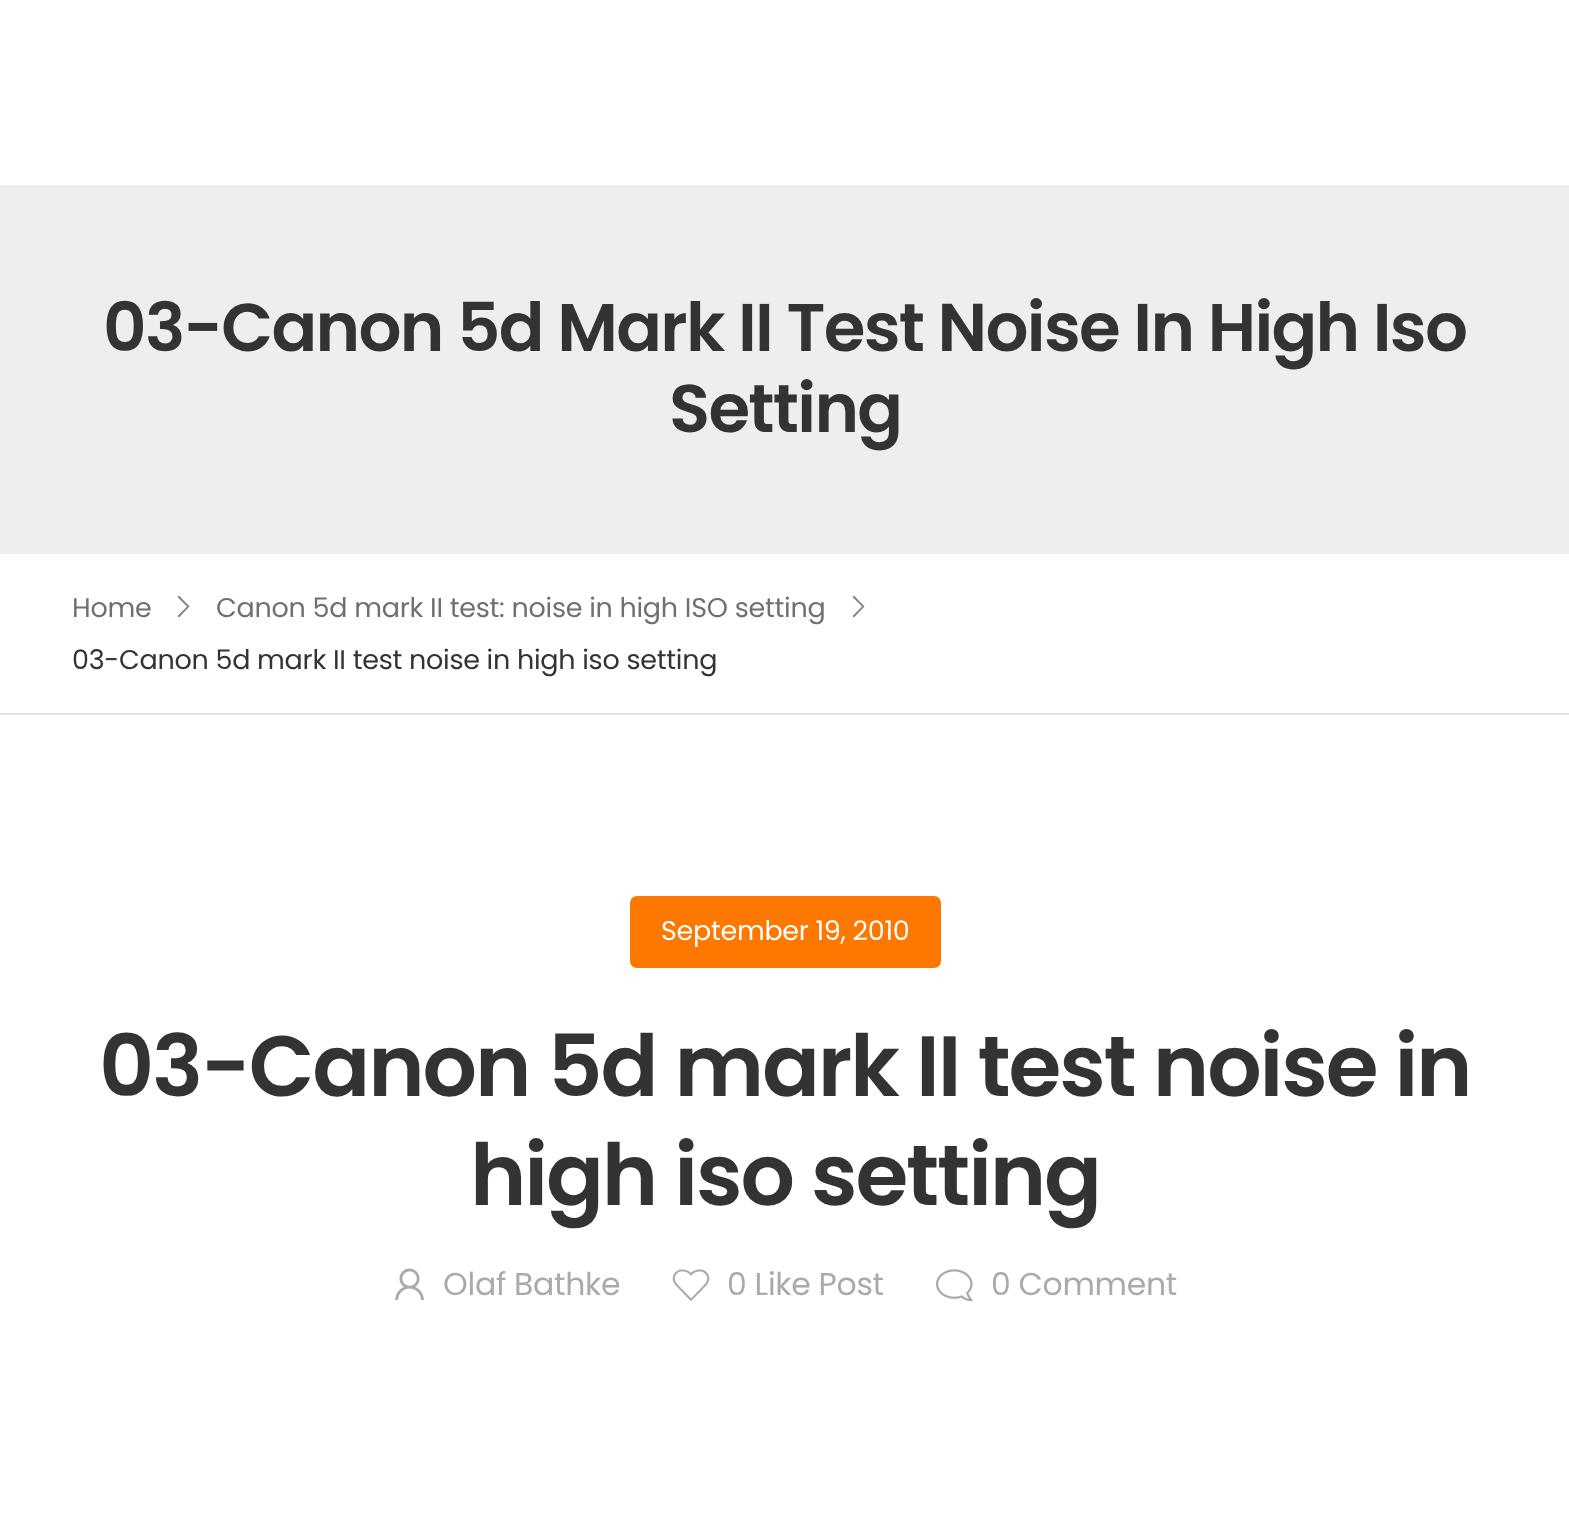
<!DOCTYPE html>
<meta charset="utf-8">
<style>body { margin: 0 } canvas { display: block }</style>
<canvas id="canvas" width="1569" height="1520"></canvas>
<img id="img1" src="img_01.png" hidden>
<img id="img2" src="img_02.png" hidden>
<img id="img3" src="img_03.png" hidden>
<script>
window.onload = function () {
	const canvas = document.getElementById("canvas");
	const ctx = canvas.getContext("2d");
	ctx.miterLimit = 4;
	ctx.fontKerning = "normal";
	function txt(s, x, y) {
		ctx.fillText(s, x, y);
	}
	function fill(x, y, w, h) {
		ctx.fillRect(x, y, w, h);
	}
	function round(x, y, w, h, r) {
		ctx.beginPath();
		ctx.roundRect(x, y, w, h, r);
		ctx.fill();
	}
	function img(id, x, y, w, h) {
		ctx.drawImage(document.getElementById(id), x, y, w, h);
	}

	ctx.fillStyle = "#FFFFFF";
	fill(0, 0, 1569, 1520);
	ctx.fillStyle = "#EEEEEE";
	fill(0, 185, 1569, 369);
	ctx.fillStyle = "#E1E1E1";
	fill(0, 713, 1569, 2);
	ctx.fillStyle = "#848585";
	ctx.beginPath();
	ctx.moveTo(179, 595.5);
	ctx.lineTo(177.5, 597);
	ctx.lineTo(187, 606.5);
	ctx.lineTo(177.5, 616);
	ctx.lineTo(179, 617.5);
	ctx.lineTo(189.5, 606.5);
	ctx.closePath();
	ctx.fill();
	ctx.beginPath();
	ctx.moveTo(854, 595.5);
	ctx.lineTo(852.5, 597);
	ctx.lineTo(862, 606.5);
	ctx.lineTo(852.5, 616);
	ctx.lineTo(854, 617.5);
	ctx.lineTo(864.5, 606.5);
	ctx.closePath();
	ctx.fill();
	ctx.fillStyle = "#FD7800";
	round(630, 896, 311, 72, 7);
	img("img1", 395, 1268, 29, 33);
	img("img2", 672, 1269, 38, 32);
	img("img3", 936, 1269, 37, 33);
	ctx.letterSpacing = "-1.7px";
	ctx.font = "600 67.5px Poppins";
	ctx.fillStyle = "#323334";
	txt("03-Canon 5d Mark II Test Noise In High Iso", 103, 351);
	txt("Setting", 669, 432);
	ctx.letterSpacing = "-0.27px";
	ctx.font = "27px Poppins";
	ctx.fillStyle = "#707071";
	txt("Home", 72, 617);
	txt("Canon 5d mark II test: noise in high ISO setting", 216, 617);
	ctx.fillStyle = "#323334";
	txt("03-Canon 5d mark II test noise in high iso setting", 72, 669);
	ctx.letterSpacing = "-0.3px";
	ctx.fillStyle = "#FFFFFF";
	txt("September 19, 2010", 661, 940);
	ctx.letterSpacing = "-2.15px";
	ctx.font = "600 85.5px Poppins";
	ctx.fillStyle = "#323334";
	txt("03-Canon 5d mark II test noise in", 99, 1096);
	txt("high iso setting", 470, 1205);
	ctx.letterSpacing = "-0.3px";
	ctx.font = "31.5px Poppins";
	ctx.fillStyle = "#AAAAAA";
	txt("Olaf Bathke", 443, 1295);
	txt("0 Like Post", 727, 1295);
	txt("0 Comment", 991, 1295);
};
</script>
